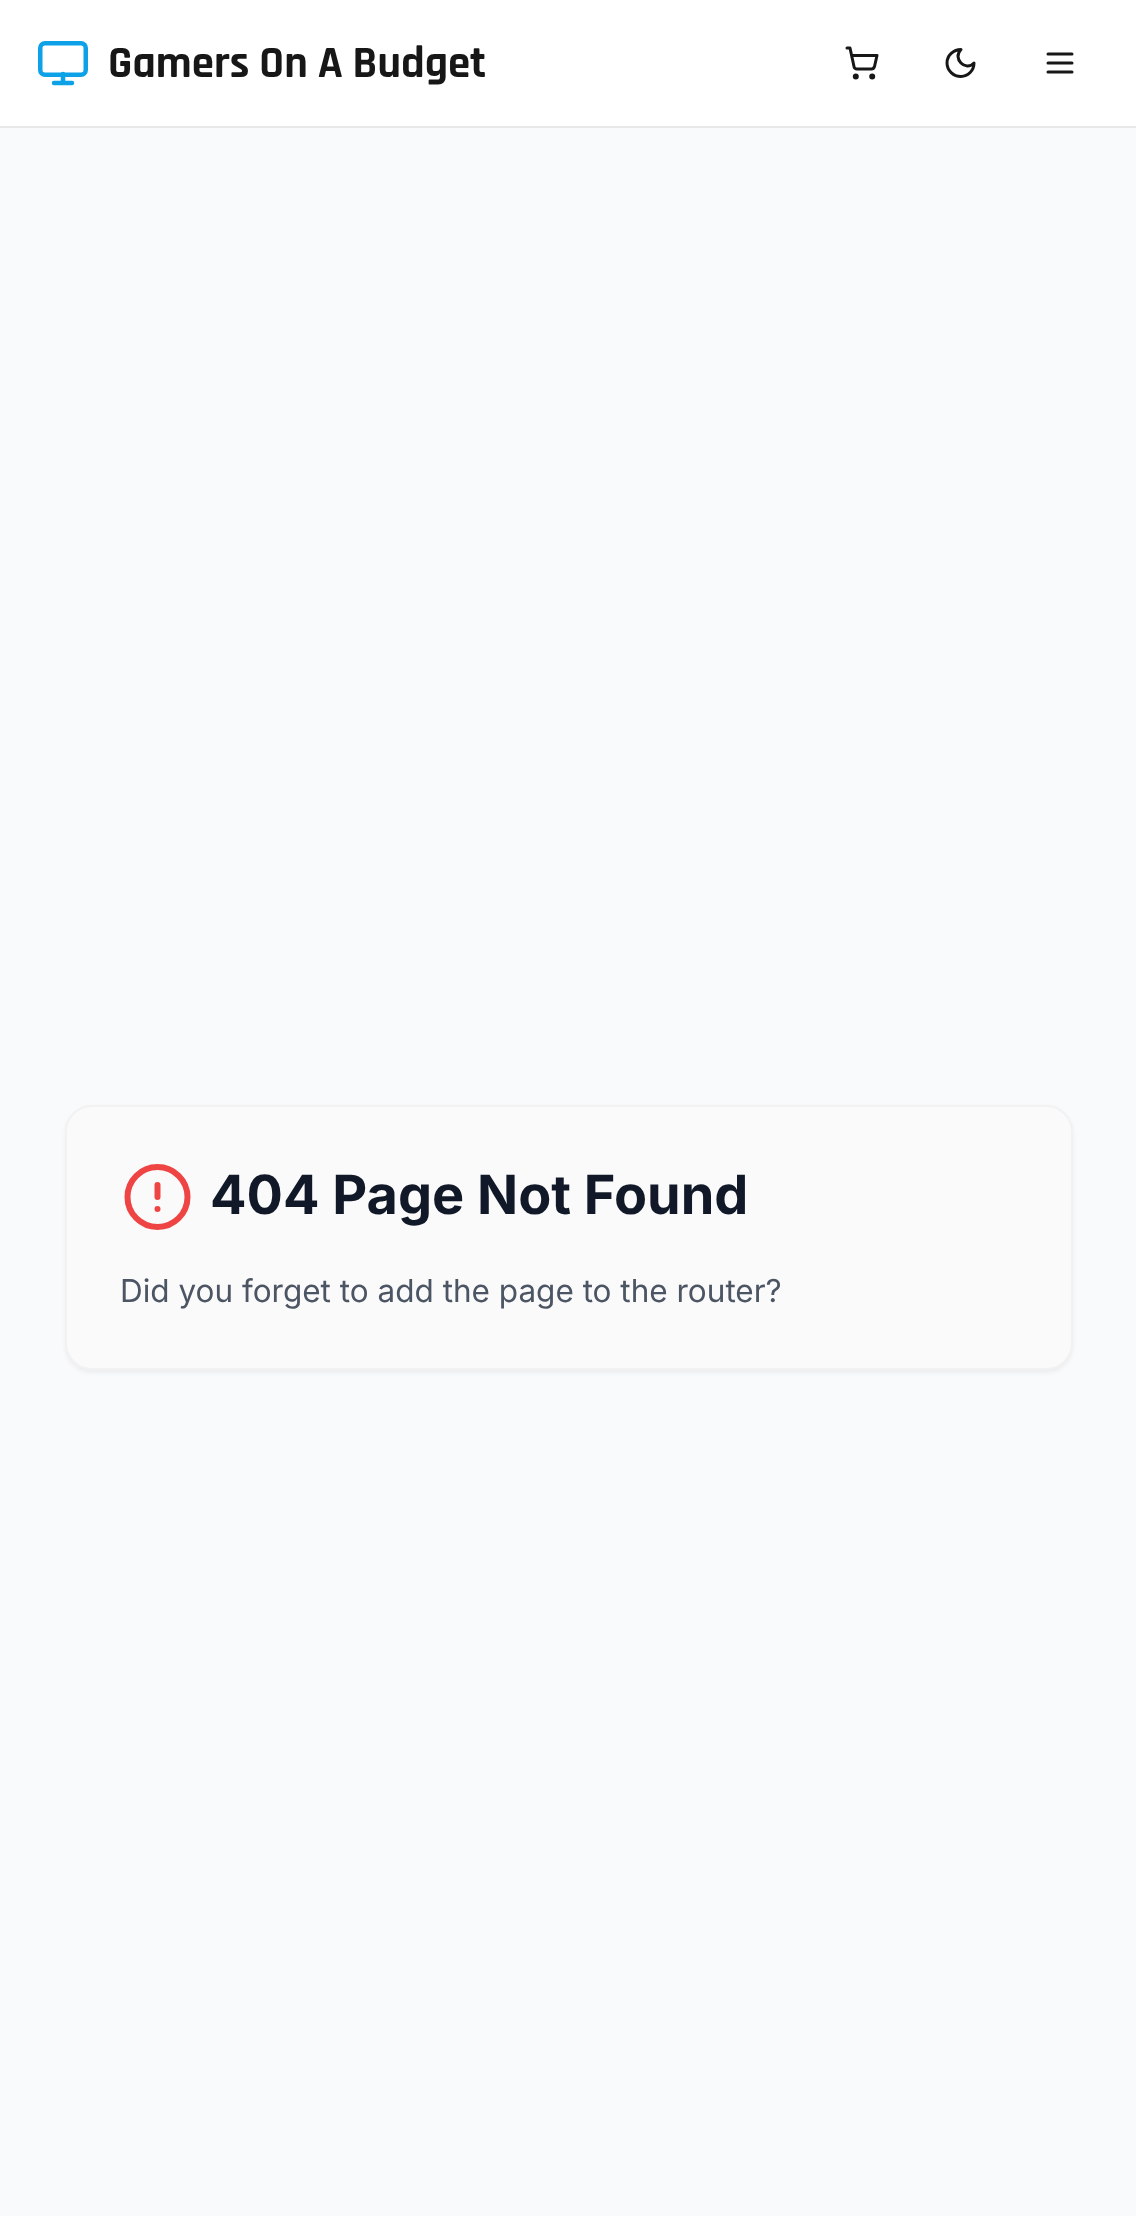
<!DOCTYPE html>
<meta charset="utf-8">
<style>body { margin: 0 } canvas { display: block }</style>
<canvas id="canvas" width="1136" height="2216"></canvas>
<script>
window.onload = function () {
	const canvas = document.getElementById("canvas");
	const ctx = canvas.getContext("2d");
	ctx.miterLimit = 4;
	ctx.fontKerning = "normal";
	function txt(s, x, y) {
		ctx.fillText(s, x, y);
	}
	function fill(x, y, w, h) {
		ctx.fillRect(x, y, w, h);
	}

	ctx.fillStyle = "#FFFFFF";
	fill(0, 0, 1136, 2216);
	ctx.fillStyle = "#E8E8E8";
	fill(0, 126, 1136, 2);
	ctx.beginPath();
	ctx.roundRect(40.25, 43.25, 45.5, 31.5, 4.75);
	ctx.strokeStyle = "#0DA2E7";
	ctx.lineWidth = 4.5;
	ctx.stroke();
	ctx.beginPath();
	ctx.moveTo(54, 83);
	ctx.lineTo(72, 83);
	ctx.moveTo(63, 74);
	ctx.lineTo(63, 83);
	ctx.lineCap = "round";
	ctx.lineJoin = "round";
	ctx.stroke();
	ctx.beginPath();
	ctx.arc(855.8, 76.5, 1.5, 0, Math.PI * 2);
	ctx.strokeStyle = "#171717";
	ctx.lineWidth = 3;
	ctx.stroke();
	ctx.beginPath();
	ctx.arc(872.2, 76.5, 1.5, 0, Math.PI * 2);
	ctx.stroke();
	ctx.beginPath();
	ctx.moveTo(847, 48);
	ctx.lineTo(850, 48);
	ctx.lineTo(854, 66.5);
	ctx.bezierCurveTo(854, 68, 855.5, 69, 857, 69);
	ctx.lineTo(871.5, 69);
	ctx.bezierCurveTo(873, 69, 874, 68, 874.5, 66.5);
	ctx.lineTo(877, 55.5);
	ctx.lineTo(851.5, 55.5);
	ctx.stroke();
	ctx.beginPath();
	ctx.moveTo(961, 49.5);
	ctx.bezierCurveTo(952, 58.5, 965.5, 72, 974, 63);
	ctx.bezierCurveTo(974, 70.5, 968, 76.5, 961, 76.5);
	ctx.bezierCurveTo(953.5, 76.5, 947, 70.5, 947, 63);
	ctx.bezierCurveTo(947, 55.5, 953.5, 49.5, 961, 49.5);
	ctx.closePath();
	ctx.stroke();
	ctx.beginPath();
	ctx.moveTo(1048, 63);
	ctx.lineTo(1072, 63);
	ctx.moveTo(1048, 54);
	ctx.lineTo(1072, 54);
	ctx.moveTo(1048, 72);
	ctx.lineTo(1072, 72);
	ctx.stroke();
	ctx.fillStyle = "#F9FAFB";
	fill(0, 128, 1136, 2088);
	ctx.fillStyle = "rgba(0, 0, 0, 0.05)";
	ctx.filter = "blur(2px)";
	ctx.beginPath();
	ctx.roundRect(65, 1107, 1008, 266, 27);
	ctx.fill();
	ctx.filter = "none";
	ctx.fillStyle = "#FAFAFA";
	ctx.beginPath();
	ctx.roundRect(66, 1106, 1006, 263, 26);
	ctx.fill();
	ctx.strokeStyle = "#F2F2F2";
	ctx.lineWidth = 2;
	ctx.lineJoin = "miter";
	ctx.stroke();
	ctx.beginPath();
	ctx.arc(157.5, 1197, 30, 0, Math.PI * 2);
	ctx.strokeStyle = "#EF4444";
	ctx.lineWidth = 6;
	ctx.stroke();
	ctx.beginPath();
	ctx.moveTo(157.5, 1185);
	ctx.lineTo(157.5, 1197);
	ctx.moveTo(157.5, 1209);
	ctx.lineTo(157.5, 1209);
	ctx.lineJoin = "round";
	ctx.stroke();
	ctx.font = "bold 45px Rajdhani";
	ctx.fillStyle = "#171717";
	txt("Gamers On A Budget", 108, 77);
	ctx.font = "bold 54px Inter";
	ctx.fillStyle = "#111827";
	txt("404 Page Not Found", 210, 1214);
	ctx.font = "31.5px Inter";
	ctx.fillStyle = "#4B5563";
	txt("Did you forget to add the page to the router?", 120, 1302);
};
</script>
